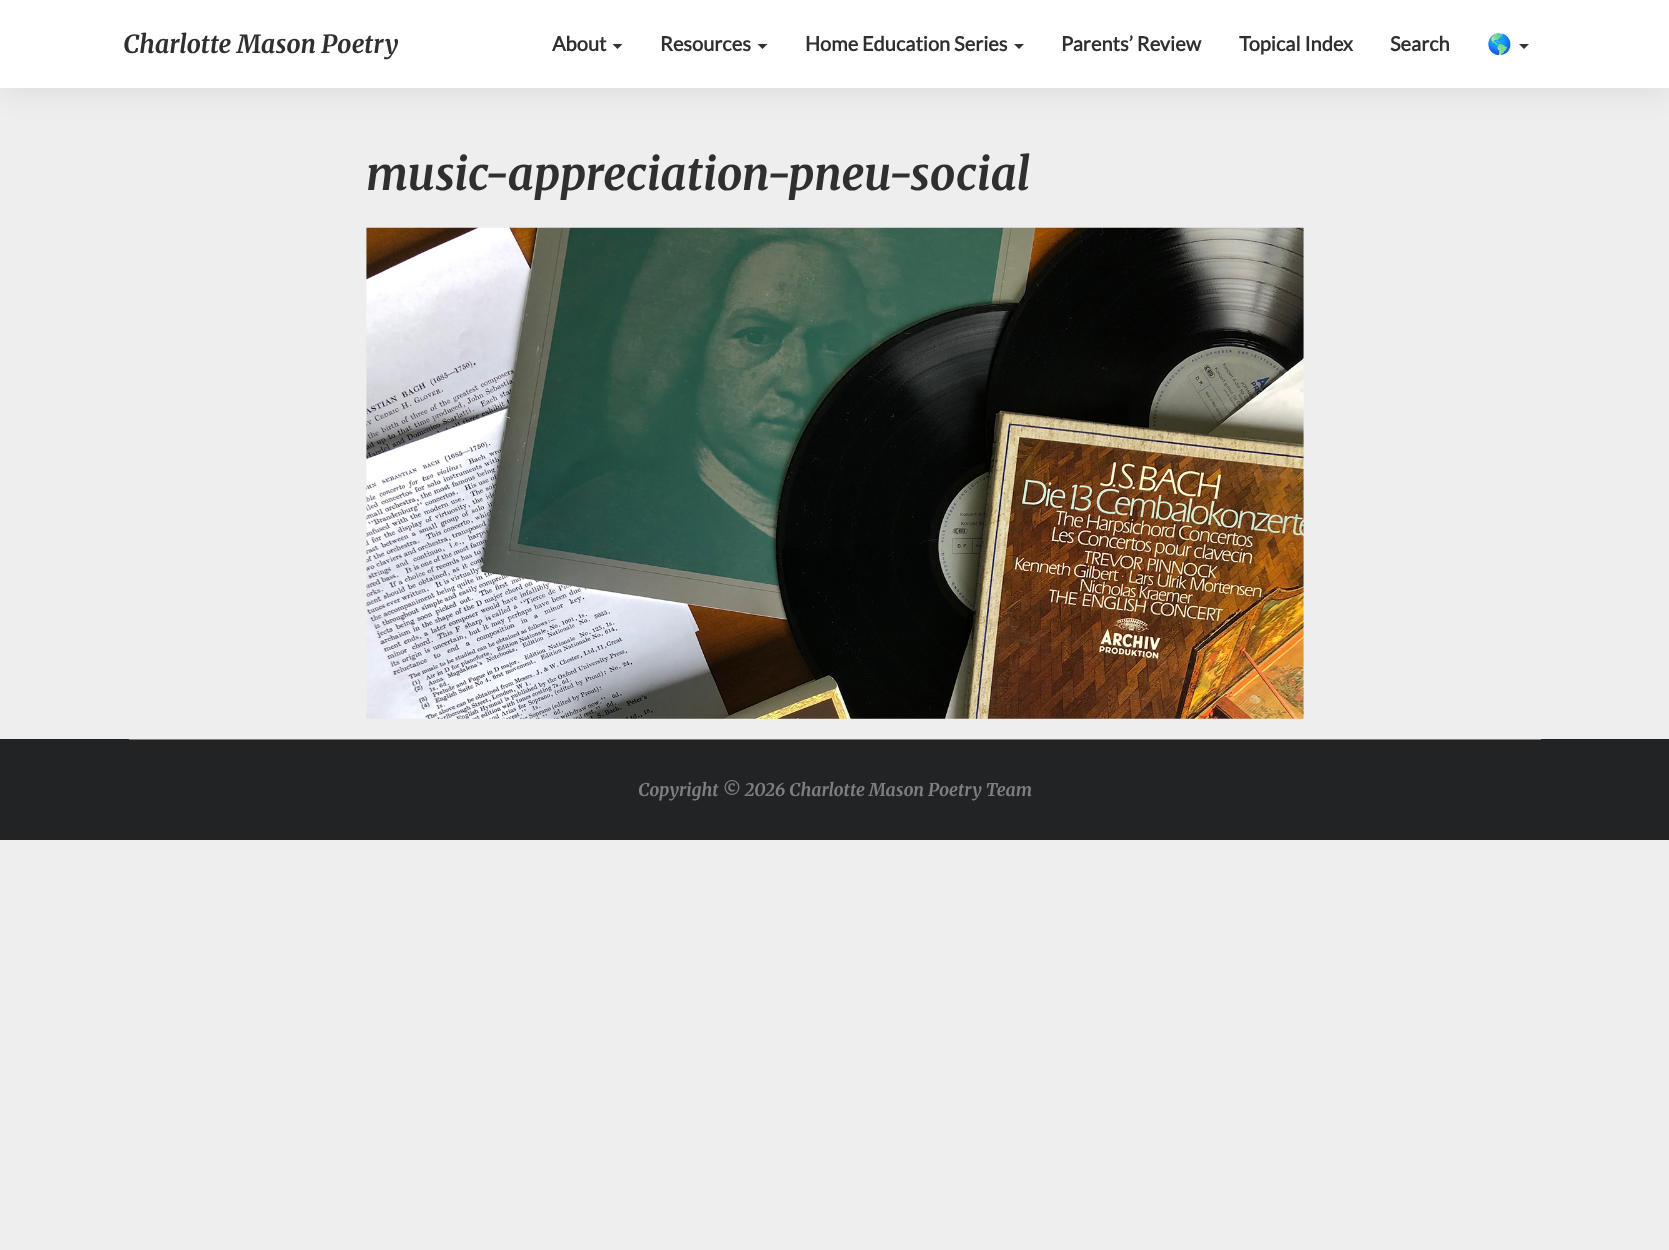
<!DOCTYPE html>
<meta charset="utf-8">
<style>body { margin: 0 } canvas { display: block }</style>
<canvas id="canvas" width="1669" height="1250"></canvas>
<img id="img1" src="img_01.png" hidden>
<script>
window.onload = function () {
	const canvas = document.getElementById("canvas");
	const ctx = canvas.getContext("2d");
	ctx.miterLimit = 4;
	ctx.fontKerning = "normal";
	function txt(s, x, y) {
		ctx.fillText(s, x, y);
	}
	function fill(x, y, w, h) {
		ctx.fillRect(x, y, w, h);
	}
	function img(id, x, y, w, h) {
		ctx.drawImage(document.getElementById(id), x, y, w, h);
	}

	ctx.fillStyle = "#EEEEEE";
	fill(0, 0, 1669, 1250);
	ctx.fillStyle = "rgba(0, 0, 0, 0.08)";
	ctx.filter = "blur(15.5px)";
	ctx.beginPath();
	ctx.rect(0, 3, 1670, 87);
	ctx.fill();
	ctx.filter = "none";
	ctx.fillStyle = "#FFFFFF";
	fill(0, 0, 1669, 88);
	ctx.fillStyle = "#333333";
	ctx.beginPath();
	ctx.moveTo(612.5, 44);
	ctx.lineTo(622.5, 44);
	ctx.lineTo(617.5, 49);
	ctx.closePath();
	ctx.fill();
	ctx.beginPath();
	ctx.moveTo(757.5, 44);
	ctx.lineTo(767.5, 44);
	ctx.lineTo(762.5, 49);
	ctx.closePath();
	ctx.fill();
	ctx.beginPath();
	ctx.moveTo(1014, 44);
	ctx.lineTo(1024, 44);
	ctx.lineTo(1019, 49);
	ctx.closePath();
	ctx.fill();
	ctx.beginPath();
	ctx.moveTo(1519, 44);
	ctx.lineTo(1529, 44);
	ctx.lineTo(1524, 49);
	ctx.closePath();
	ctx.fill();
	img("img1", 366, 227, 938, 492);
	ctx.fillStyle = "#212324";
	fill(0, 739, 1669, 101);
	ctx.fillStyle = "#7F7F7F";
	fill(129, 739, 1412, 1);
	ctx.font = "italic 300 25px Merriweather";
	ctx.fillStyle = "#2F2F2F";
	txt("Charlotte Mason Poetry", 123, 53);
	ctx.font = "bold 20px Lato";
	txt("About", 552, 51);
	txt("Resources", 660, 51);
	txt("Home Education Series", 805, 51);
	txt("Parents’ Review", 1061, 51);
	txt("Topical Index", 1239, 51);
	txt("Search", 1390, 51);
	ctx.font = "bold 20px Noto Color Emoji";
	txt("🌎", 1487, 51);
	ctx.save();
	ctx.beginPath();
	ctx.rect(366, 150, 938, 50);
	ctx.clip();
	ctx.font = "italic 300 45px Merriweather";
	txt("music-appreciation-pneu-social", 366, 190);
	ctx.restore();
	ctx.font = "italic 300 17.5px Merriweather";
	ctx.fillStyle = "#7F7F7F";
	txt("Copyright © 2026 Charlotte Mason Poetry Team", 638, 796);
};
</script>
